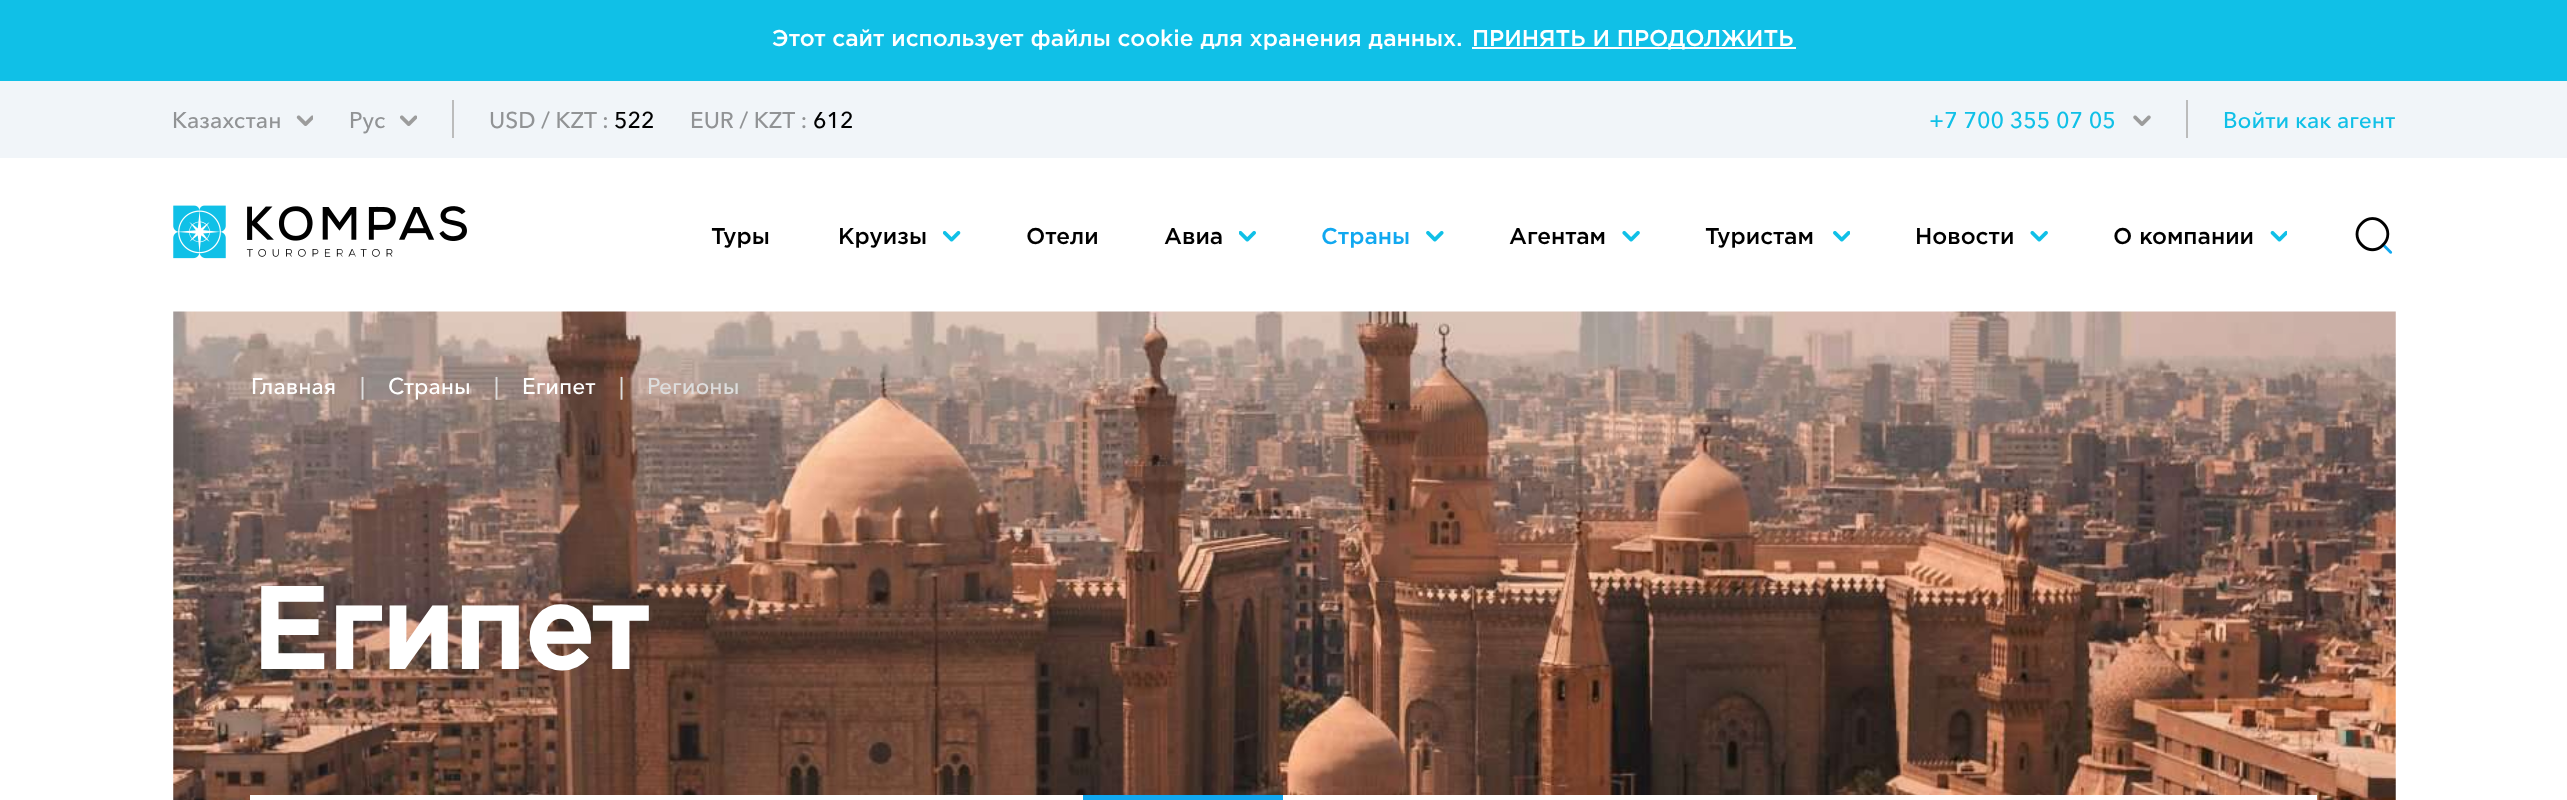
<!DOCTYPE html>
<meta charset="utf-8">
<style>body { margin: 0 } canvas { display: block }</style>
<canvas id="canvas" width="2567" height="800"></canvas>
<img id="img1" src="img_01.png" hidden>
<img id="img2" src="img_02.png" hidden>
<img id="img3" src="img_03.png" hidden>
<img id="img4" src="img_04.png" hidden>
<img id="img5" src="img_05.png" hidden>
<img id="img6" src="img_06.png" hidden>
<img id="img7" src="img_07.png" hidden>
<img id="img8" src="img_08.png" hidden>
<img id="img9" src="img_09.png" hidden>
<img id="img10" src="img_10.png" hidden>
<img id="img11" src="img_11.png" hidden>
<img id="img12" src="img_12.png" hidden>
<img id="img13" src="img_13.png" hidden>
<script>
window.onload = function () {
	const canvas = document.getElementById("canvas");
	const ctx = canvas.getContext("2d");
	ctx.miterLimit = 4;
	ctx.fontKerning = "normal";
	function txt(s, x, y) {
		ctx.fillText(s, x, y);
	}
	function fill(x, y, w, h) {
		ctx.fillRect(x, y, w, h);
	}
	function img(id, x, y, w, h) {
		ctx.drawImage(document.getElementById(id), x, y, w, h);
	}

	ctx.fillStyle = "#FFFFFF";
	fill(0, 0, 2567, 800);
	ctx.fillStyle = "#10C0E7";
	fill(0, 0, 2567, 81);
	ctx.fillStyle = "#FFFFFF";
	fill(1472, 47, 324, 2);
	ctx.fillStyle = "#F1F5F9";
	fill(0, 81, 2567, 77);
	img("img1", 296, 115, 17, 11);
	img("img2", 400, 115, 17, 11);
	ctx.fillStyle = "#BCBCBC";
	fill(452, 100, 2, 38);
	img("img3", 2133, 115, 18, 11);
	fill(2186, 100, 2, 38);
	img("img4", 173, 205, 294, 54);
	img("img5", 943, 230, 18, 12);
	img("img6", 1239, 230, 17, 12);
	img("img7", 1426, 230, 18, 12);
	img("img8", 1622, 230, 18, 12);
	img("img9", 1833, 230, 17, 12);
	img("img10", 2030, 230, 18, 12);
	img("img11", 2270, 230, 17, 12);
	img("img12", 2355, 217, 38, 37);
	img("img13", 173, 311, 2223, 489);
	ctx.fillStyle = "#FFFFFF";
	fill(250, 795, 2067, 5);
	ctx.fillStyle = "#11A8F0";
	fill(1083, 795, 200, 5);
	ctx.font = "500 22.75px Gotham";
	ctx.fillStyle = "#FFFFFF";
	txt("Этот сайт использует файлы cookie для хранения данных.", 772, 46);
	txt("ПРИНЯТЬ И ПРОДОЛЖИТЬ", 1472, 46);
	ctx.font = "500 22.75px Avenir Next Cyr";
	ctx.fillStyle = "#919395";
	txt("Казахстан", 172, 128);
	txt("Рус", 349, 128);
	txt("USD / KZT :", 489, 128);
	ctx.fillStyle = "#000000";
	txt("522", 614, 128);
	ctx.fillStyle = "#919395";
	txt("EUR / KZT :", 690, 128);
	ctx.fillStyle = "#000000";
	txt("612", 813, 128);
	ctx.fillStyle = "#10C0E7";
	txt("+7 700 355 07 05", 1929, 128);
	txt("Войти как агент", 2223, 128);
	ctx.font = "500 22.75px Gotham";
	ctx.fillStyle = "#000000";
	txt("Туры", 711, 244);
	txt("Круизы", 838, 244);
	txt("Отели", 1026, 244);
	txt("Авиа", 1164, 244);
	ctx.fillStyle = "#11A8F0";
	txt("Страны", 1321, 244);
	ctx.fillStyle = "#000000";
	txt("Агентам", 1509, 244);
	txt("Туристам", 1705, 244);
	txt("Новости", 1915, 244);
	txt("О компании", 2113, 244);
	ctx.font = "500 22.75px Avenir Next Cyr";
	ctx.fillStyle = "#FFFFFF";
	txt("Главная", 251, 394);
	ctx.fillStyle = "#DDDDDD";
	txt("|", 360, 394);
	ctx.fillStyle = "#FFFFFF";
	txt("Страны", 388, 394);
	ctx.fillStyle = "#DDDDDD";
	txt("|", 494, 394);
	ctx.fillStyle = "#FFFFFF";
	txt("Египет", 522, 394);
	ctx.fillStyle = "#DDDDDD";
	txt("|", 619, 394);
	txt("Регионы", 647, 394);
	ctx.font = "bold 114px Gotham";
	ctx.fillStyle = "#FFFFFF";
	txt("Египет", 251, 669);
};
</script>
